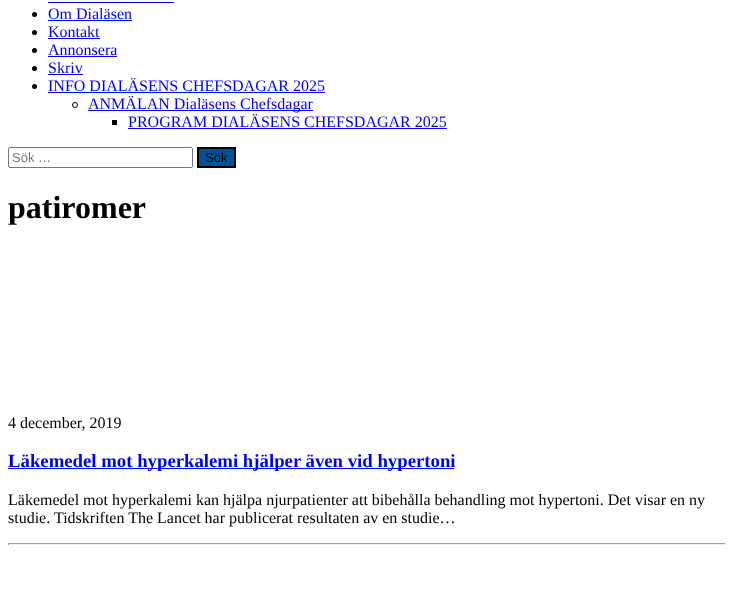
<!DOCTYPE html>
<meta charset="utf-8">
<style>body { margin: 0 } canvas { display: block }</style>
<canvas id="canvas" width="734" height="597"></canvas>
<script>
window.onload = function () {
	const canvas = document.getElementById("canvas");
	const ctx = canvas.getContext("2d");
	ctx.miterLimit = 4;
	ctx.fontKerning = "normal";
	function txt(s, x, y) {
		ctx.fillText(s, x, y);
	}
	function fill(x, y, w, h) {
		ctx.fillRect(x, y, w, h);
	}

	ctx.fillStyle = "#FFFFFF";
	fill(0, 0, 734, 597);
	ctx.fillStyle = "#0000EE";
	fill(48, 2, 126, 1);
	ctx.fillStyle = "#000000";
	ctx.beginPath();
	ctx.arc(34.5, 14.5, 2.5, 0, Math.PI * 2);
	ctx.fill();
	ctx.fillStyle = "#0000EE";
	fill(48, 20, 84, 1);
	ctx.fillStyle = "#000000";
	ctx.beginPath();
	ctx.arc(34.5, 32.5, 2.5, 0, Math.PI * 2);
	ctx.fill();
	ctx.fillStyle = "#0000EE";
	fill(48, 38, 52, 1);
	ctx.fillStyle = "#000000";
	ctx.beginPath();
	ctx.arc(34.5, 50.5, 2.5, 0, Math.PI * 2);
	ctx.fill();
	ctx.fillStyle = "#0000EE";
	fill(48, 56, 69, 1);
	ctx.fillStyle = "#000000";
	ctx.beginPath();
	ctx.arc(34.5, 68.5, 2.5, 0, Math.PI * 2);
	ctx.fill();
	ctx.fillStyle = "#0000EE";
	fill(48, 74, 35, 1);
	ctx.fillStyle = "#000000";
	ctx.beginPath();
	ctx.arc(34.5, 86.5, 2.5, 0, Math.PI * 2);
	ctx.fill();
	ctx.fillStyle = "#0000EE";
	fill(48, 92, 277, 1);
	ctx.beginPath();
	ctx.arc(75, 105, 2.5, 0, Math.PI * 2);
	ctx.strokeStyle = "#000000";
	ctx.stroke();
	fill(88, 110, 225, 1);
	ctx.fillStyle = "#000000";
	fill(112, 120, 5, 5);
	ctx.fillStyle = "#0000EE";
	fill(128, 128, 319, 1);
	ctx.beginPath();
	ctx.roundRect(8.5, 147.5, 184, 20, 1.5);
	ctx.strokeStyle = "#767676";
	ctx.stroke();
	ctx.fillStyle = "#00539B";
	ctx.beginPath();
	ctx.rect(198, 148, 37, 19);
	ctx.fill();
	ctx.strokeStyle = "#000000";
	ctx.lineWidth = 2;
	ctx.stroke();
	ctx.fillStyle = "#0000EE";
	fill(8, 468, 446, 1);
	ctx.fillStyle = "#9F9F9F";
	fill(8, 543, 718, 1);
	ctx.fillStyle = "#EEEEEE";
	fill(725, 543, 1, 2);
	fill(8, 544, 718, 1);
	ctx.fillStyle = "#9F9F9F";
	fill(8, 543, 1, 2);
	ctx.font = "16px Liberation Serif";
	ctx.fillStyle = "#0000EE";
	txt("Om Dialäsen", 48, 19);
	txt("Kontakt", 48, 37);
	txt("Annonsera", 48, 55);
	txt("Skriv", 48, 73);
	txt("INFO DIALÄSENS CHEFSDAGAR 2025", 48, 91);
	txt("ANMÄLAN Dialäsens Chefsdagar", 88, 109);
	txt("PROGRAM DIALÄSENS CHEFSDAGAR 2025", 128, 127);
	ctx.font = "13px Liberation Sans";
	ctx.fillStyle = "#757575";
	txt("Sök …", 12, 162);
	ctx.fillStyle = "#000000";
	txt("Sök", 205, 162);
	ctx.font = "bold 32px Liberation Serif";
	txt("patiromer", 8, 218);
	ctx.font = "16px Liberation Serif";
	txt("4 december, 2019", 8, 428);
	ctx.font = "bold 18.75px Liberation Serif";
	ctx.fillStyle = "#0000EE";
	txt("Läkemedel mot hyperkalemi hjälper även vid hypertoni", 8, 467);
	ctx.font = "16px Liberation Serif";
	ctx.fillStyle = "#000000";
	txt("Läkemedel mot hyperkalemi kan hjälpa njurpatienter att bibehålla behandling mot hypertoni. Det visar en ny", 8, 505);
	txt("studie. Tidskriften The Lancet har publicerat resultaten av en studie…", 8, 523);
};
</script>
